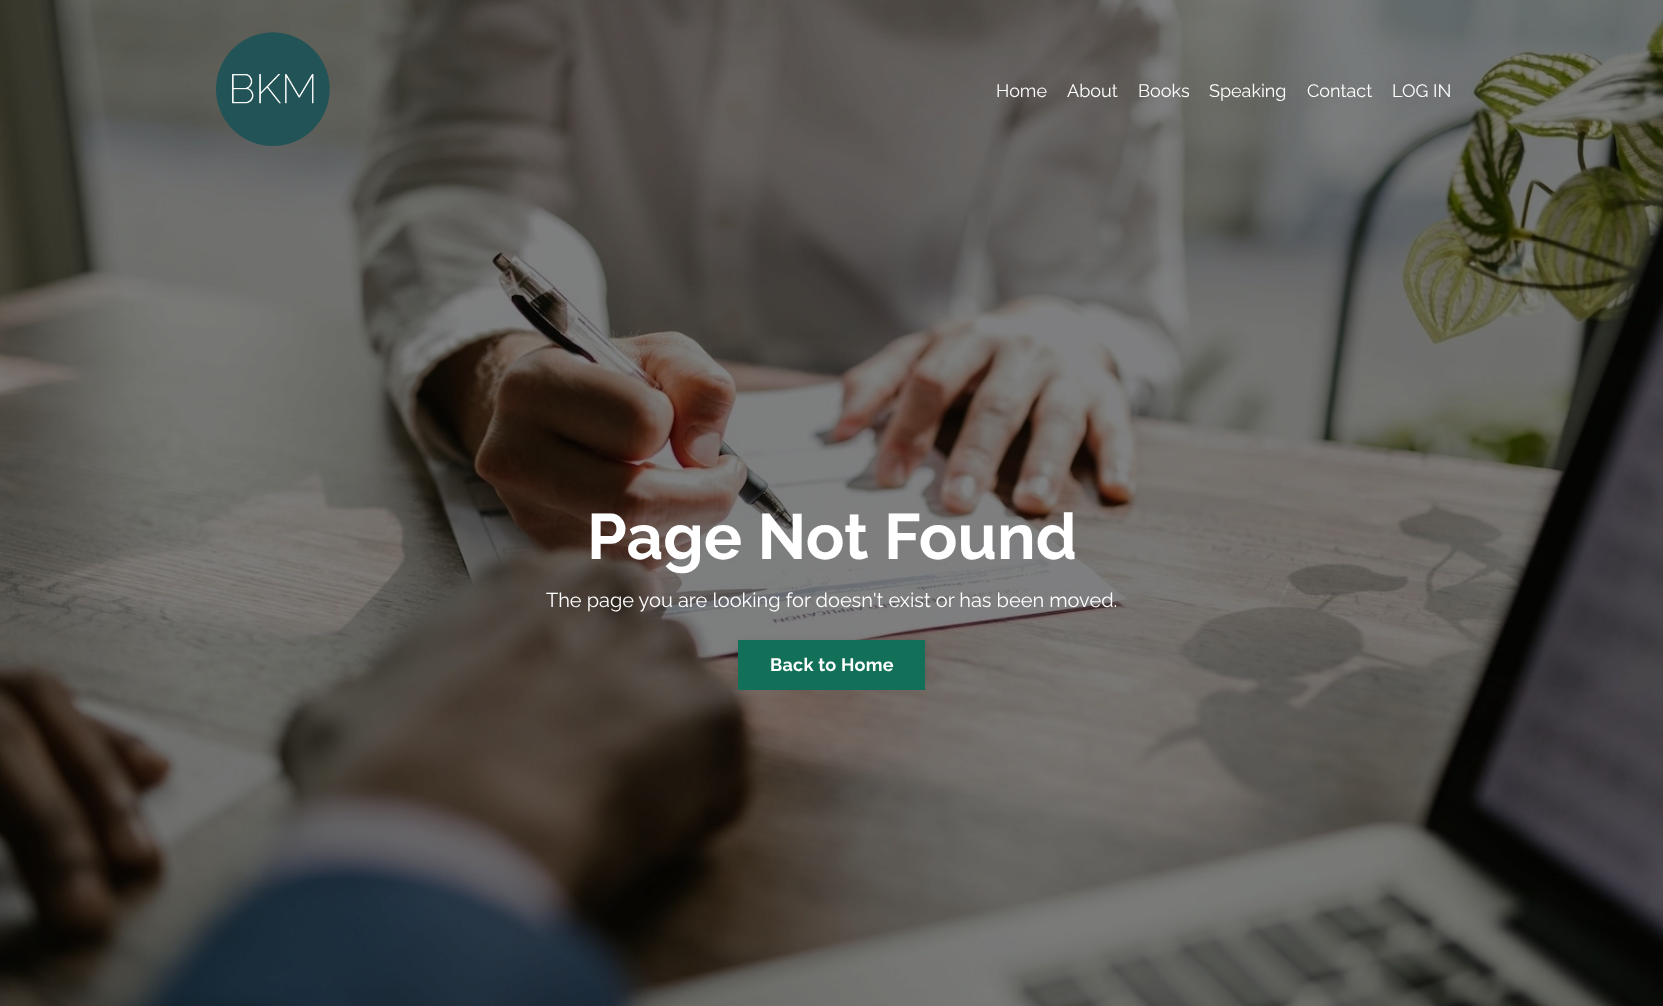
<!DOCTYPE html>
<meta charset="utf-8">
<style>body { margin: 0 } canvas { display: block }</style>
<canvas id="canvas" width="1663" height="1006"></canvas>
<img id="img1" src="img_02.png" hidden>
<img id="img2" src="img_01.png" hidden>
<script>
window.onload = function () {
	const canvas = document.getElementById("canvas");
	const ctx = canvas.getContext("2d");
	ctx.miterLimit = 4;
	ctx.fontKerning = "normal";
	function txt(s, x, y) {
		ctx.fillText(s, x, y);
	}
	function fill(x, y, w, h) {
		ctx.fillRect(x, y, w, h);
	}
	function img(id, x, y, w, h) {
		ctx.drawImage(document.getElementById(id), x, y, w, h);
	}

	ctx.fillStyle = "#FFFFFF";
	fill(0, 0, 1663, 1006);
	img("img1", 0, 0, 1663, 1006);
	img("img2", 216, 32, 114, 114);
	ctx.save();
	ctx.beginPath();
	ctx.roundRect(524, 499, 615, 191, 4);
	ctx.clip();
	ctx.fillStyle = "rgba(0, 0, 0, 0.1)";
	ctx.filter = "blur(5px)";
	ctx.beginPath();
	ctx.rect(738, 642, 187, 50);
	ctx.fill();
	ctx.filter = "none";
	ctx.restore();
	ctx.fillStyle = "#127059";
	fill(738, 640, 187, 50);
	ctx.font = "18px Raleway";
	ctx.fillStyle = "#FFFFFF";
	txt("Home", 996, 97);
	txt("About", 1067, 97);
	txt("Books", 1138, 97);
	txt("Speaking", 1209, 97);
	txt("Contact", 1307, 97);
	txt("LOG IN", 1392, 97);
	ctx.font = "bold 64px Raleway";
	txt("Page Not Found", 587, 559);
	ctx.font = "20px Raleway";
	txt("The page you are looking for doesn't exist or has been moved.", 546, 607);
	ctx.letterSpacing = "0.25px";
	ctx.font = "bold 18px Raleway";
	txt("Back to Home", 770, 671);
};
</script>
